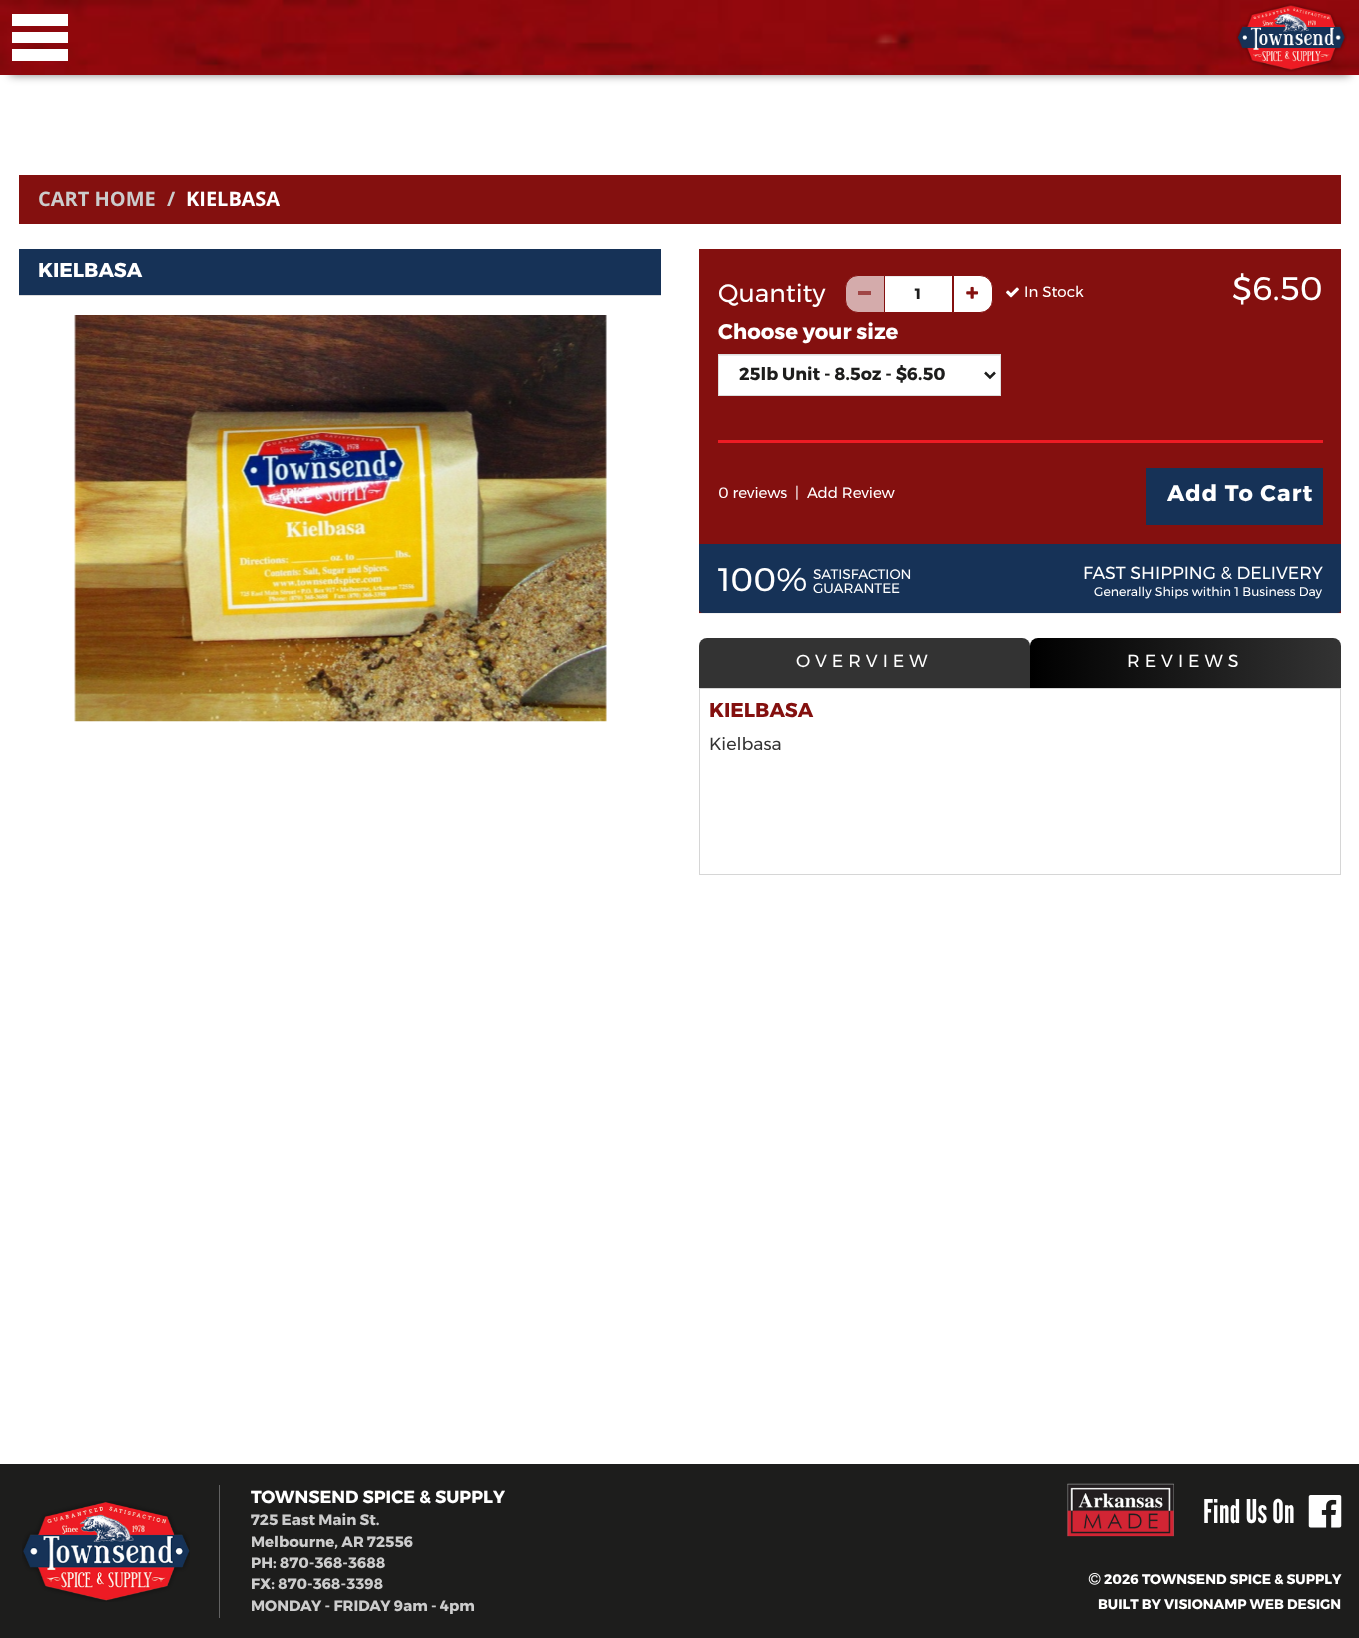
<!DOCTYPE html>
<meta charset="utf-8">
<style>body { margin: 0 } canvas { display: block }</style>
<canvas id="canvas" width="1359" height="1638"></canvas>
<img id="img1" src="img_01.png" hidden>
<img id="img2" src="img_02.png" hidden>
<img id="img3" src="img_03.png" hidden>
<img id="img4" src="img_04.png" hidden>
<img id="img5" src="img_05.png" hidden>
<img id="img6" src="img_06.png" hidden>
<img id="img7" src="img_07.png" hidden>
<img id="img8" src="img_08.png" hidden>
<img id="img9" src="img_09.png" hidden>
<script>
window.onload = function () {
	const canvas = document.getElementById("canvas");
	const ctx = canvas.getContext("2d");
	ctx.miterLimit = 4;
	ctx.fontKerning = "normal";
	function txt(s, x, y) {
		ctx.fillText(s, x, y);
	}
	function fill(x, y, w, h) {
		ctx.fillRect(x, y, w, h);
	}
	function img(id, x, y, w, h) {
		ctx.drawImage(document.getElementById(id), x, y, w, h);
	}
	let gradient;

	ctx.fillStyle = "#FFFFFF";
	fill(0, 0, 1359, 1638);
	ctx.fillStyle = "rgba(0, 0, 0, 0.5)";
	ctx.filter = "blur(5px)";
	ctx.beginPath();
	ctx.rect(10, 20, 1340, 55);
	ctx.fill();
	ctx.filter = "none";
	img("img1", 0, 0, 1359, 75);
	ctx.fillStyle = "#FFFFFF";
	ctx.beginPath();
	ctx.moveTo(68, 49);
	ctx.lineTo(68, 61);
	ctx.lineTo(12, 61);
	ctx.lineTo(12, 49);
	ctx.closePath();
	ctx.moveTo(68, 32);
	ctx.lineTo(68, 43);
	ctx.lineTo(12, 43);
	ctx.lineTo(12, 32);
	ctx.closePath();
	ctx.moveTo(68, 14);
	ctx.lineTo(68, 26);
	ctx.lineTo(12, 26);
	ctx.lineTo(12, 14);
	ctx.closePath();
	ctx.fill();
	img("img2", 1236, 3, 111, 69);
	ctx.fillStyle = "#84100F";
	fill(19, 175, 1322, 49);
	ctx.fillStyle = "#163257";
	fill(19, 249, 642, 46);
	ctx.fillStyle = "#DDDDDD";
	fill(19, 295, 642, 1);
	img("img3", 74, 315, 533, 407);
	ctx.fillStyle = "rgba(0, 0, 0, 0.05)";
	ctx.filter = "blur(0.5px)";
	ctx.beginPath();
	ctx.rect(699, 250, 642, 364);
	ctx.fill();
	ctx.filter = "none";
	ctx.fillStyle = "#84100F";
	fill(699, 249, 642, 364);
	ctx.fillStyle = "#D4ABAB";
	ctx.beginPath();
	ctx.roundRect(845.5, 275.5, 39, 37, [12.5, 0, 0, 12.5]);
	ctx.fill();
	ctx.strokeStyle = "#84100F";
	ctx.stroke();
	ctx.fillStyle = "#A04646";
	fill(858, 291, 13, 4);
	ctx.fillStyle = "#FFFFFF";
	fill(885, 276, 67, 36);
	ctx.fillStyle = "#ECECEC";
	fill(885, 276, 66, 1);
	ctx.fillStyle = "#FFFFFF";
	ctx.beginPath();
	ctx.roundRect(953.5, 275.5, 39, 37, [0, 12.5, 12.5, 0]);
	ctx.fill();
	ctx.stroke();
	img("img4", 966, 286, 13, 13);
	img("img5", 1006, 287, 13, 11);
	fill(719, 356, 281, 39);
	ctx.fillStyle = "#ECECEC";
	fill(719, 355, 281, 1);
	ctx.strokeStyle = "#DDDDDD";
	ctx.strokeRect(718.5, 354.5, 282, 41);
	ctx.beginPath();
	ctx.moveTo(985, 372.5);
	ctx.lineTo(990, 377.5);
	ctx.lineTo(995, 372.5);
	ctx.strokeStyle = "#1D1D1C";
	ctx.lineWidth = 2.5;
	ctx.stroke();
	ctx.fillStyle = "#ED1B24";
	fill(718, 440, 605, 3);
	ctx.fillStyle = "#163257";
	fill(1146, 468, 177, 57);
	ctx.beginPath();
	ctx.roundRect(699, 544, 642, 69, [0, 0, 4, 4]);
	ctx.fill();
	ctx.fillStyle = "#333333";
	ctx.beginPath();
	ctx.roundRect(699, 638, 331, 50, [8, 8, 0, 0]);
	ctx.fill();
	gradient = ctx.createLinearGradient(1030, 663, 1341, 663);
	gradient.addColorStop(0, "#000000");
	gradient.addColorStop(1, "#333333");
	ctx.fillStyle = gradient;
	ctx.beginPath();
	ctx.roundRect(1030, 638, 311, 50, [8, 8, 0, 0]);
	ctx.fill();
	ctx.strokeStyle = "#D6D6D6";
	ctx.lineWidth = 1;
	ctx.strokeRect(699.5, 688.5, 641, 186);
	ctx.fillStyle = "#1D1D1C";
	fill(0, 1464, 1359, 174);
	img("img6", 22, 1501, 168, 101);
	ctx.fillStyle = "#626262";
	fill(219, 1485, 1, 133);
	img("img7", 1067, 1483, 107, 54);
	img("img8", 1308, 1495, 34, 33);
	img("img9", 1088, 1572, 13, 13);
	ctx.font = "bold 20px Open Sans";
	ctx.fillStyle = "#CCCCCC";
	txt("CART HOME", 38, 206);
	txt("/", 167, 206);
	ctx.fillStyle = "#FFFFFF";
	txt("KIELBASA", 186, 206);
	ctx.font = "bold 20px Montserrat";
	txt("KIELBASA", 38, 277);
	ctx.font = "25px Montserrat";
	txt("Quantity", 718, 302);
	ctx.font = "bold 15px Montserrat";
	ctx.fillStyle = "#1D1D1C";
	txt("1", 915, 299);
	ctx.font = "15px Montserrat";
	ctx.fillStyle = "#FFFFFF";
	txt("In Stock", 1024, 297);
	ctx.font = "32.5px Montserrat";
	txt("$6.50", 1232, 300);
	ctx.font = "bold 21.25px Montserrat";
	txt("Choose your size", 718, 339);
	ctx.font = "bold 17.5px Montserrat";
	ctx.fillStyle = "#1D1D1C";
	txt("25lb Unit - 8.5oz - $6.50", 739, 380);
	ctx.font = "15px Montserrat";
	ctx.fillStyle = "#FFFFFF";
	txt("0 reviews", 718, 498);
	txt("|", 795, 498);
	txt("Add Review", 807, 498);
	ctx.letterSpacing = "1.25px";
	ctx.font = "bold 22.5px Montserrat";
	txt("Add To Cart", 1167, 501);
	ctx.letterSpacing = "0px";
	ctx.font = "32.5px Montserrat";
	txt("100%", 718, 591);
	ctx.font = "13.75px Montserrat";
	txt("SATISFACTION", 813, 579);
	txt("GUARANTEE", 813, 593);
	ctx.font = "17.5px Montserrat";
	txt("FAST SHIPPING & DELIVERY", 1083, 579);
	ctx.font = "12.5px Montserrat";
	txt("Generally Ships within 1 Business Day", 1094, 596);
	ctx.letterSpacing = "5px";
	ctx.font = "17.5px Montserrat";
	txt("OVERVIEW", 796, 667);
	txt("REVIEWS", 1127, 667);
	ctx.letterSpacing = "0px";
	ctx.font = "bold 20px Montserrat";
	ctx.fillStyle = "#84100F";
	txt("KIELBASA", 709, 717);
	ctx.font = "17.5px Montserrat";
	ctx.fillStyle = "#333333";
	txt("Kielbasa", 709, 750);
	ctx.font = "bold 17.5px Montserrat";
	ctx.fillStyle = "#FFFFFF";
	txt("TOWNSEND SPICE & SUPPLY", 251, 1503);
	ctx.font = "bold 15px Montserrat";
	ctx.fillStyle = "#CCCCCC";
	txt("725 East Main St.", 251, 1525);
	txt("Melbourne, AR 72556", 251, 1547);
	txt("PH: 870-368-3688", 251, 1568);
	txt("FX: 870-368-3398", 251, 1589);
	txt("MONDAY - FRIDAY 9am - 4pm", 251, 1611);
	ctx.font = "32.5px League Gothic";
	ctx.fillStyle = "#FFFFFF";
	txt("Find Us On", 1203, 1523);
	ctx.font = "bold 13.75px Montserrat";
	txt("2026 TOWNSEND SPICE & SUPPLY", 1104, 1584);
	txt("BUILT BY VISIONAMP WEB DESIGN", 1098, 1609);
};
</script>
